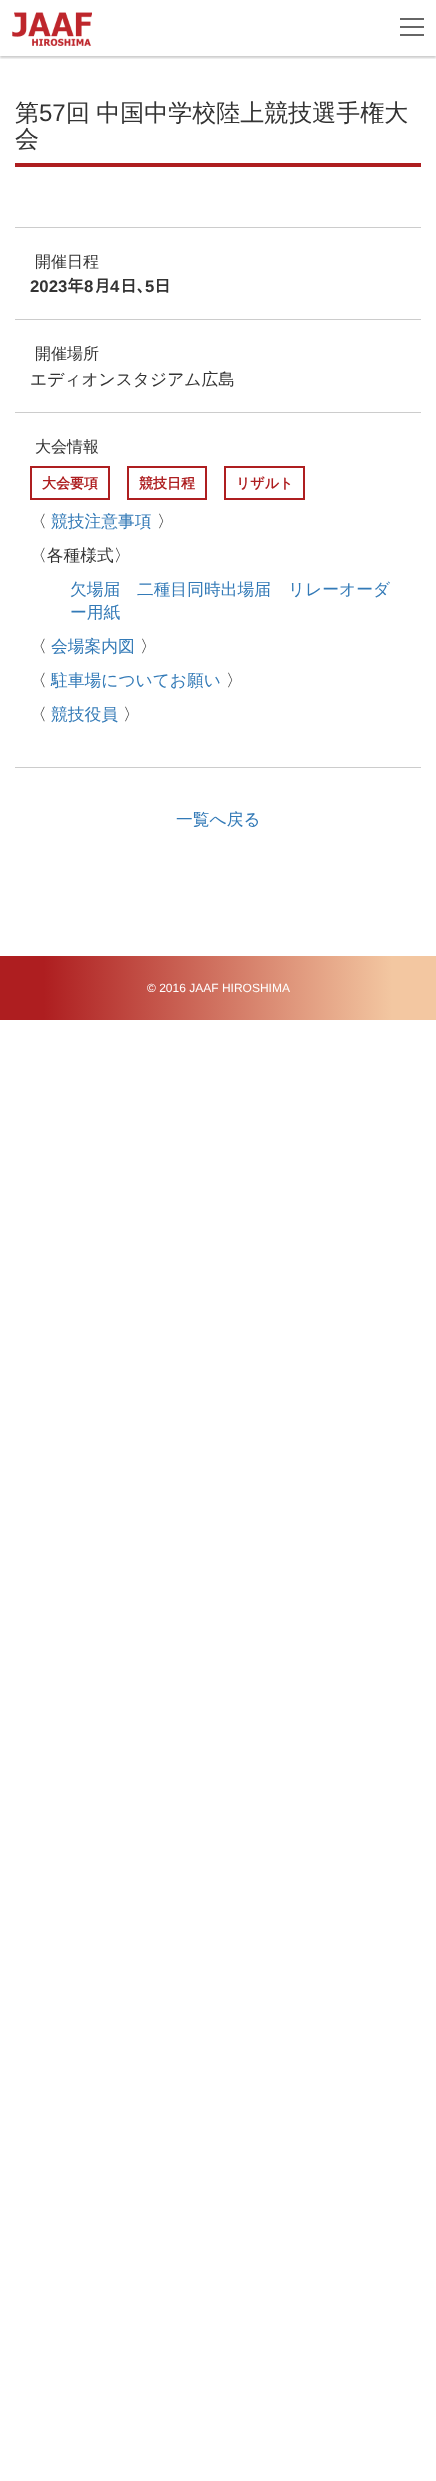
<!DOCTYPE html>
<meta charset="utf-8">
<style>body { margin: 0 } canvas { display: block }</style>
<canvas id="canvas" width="436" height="2481"></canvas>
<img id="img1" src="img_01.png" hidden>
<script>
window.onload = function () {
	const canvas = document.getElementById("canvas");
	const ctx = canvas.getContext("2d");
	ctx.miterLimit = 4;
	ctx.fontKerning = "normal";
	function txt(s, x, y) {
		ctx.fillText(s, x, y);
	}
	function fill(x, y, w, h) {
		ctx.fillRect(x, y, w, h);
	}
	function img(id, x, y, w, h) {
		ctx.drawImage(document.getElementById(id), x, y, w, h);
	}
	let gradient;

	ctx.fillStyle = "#FFFFFF";
	fill(0, 0, 436, 2481);
	ctx.save();
	ctx.beginPath();
	ctx.rect(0, 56, 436, 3);
	ctx.clip();
	ctx.fillStyle = "rgba(0, 0, 0, 0.2)";
	ctx.filter = "blur(1px)";
	ctx.beginPath();
	ctx.rect(0, 2, 436, 56);
	ctx.fill();
	ctx.filter = "none";
	ctx.restore();
	img("img1", 12, 12, 80, 34);
	ctx.fillStyle = "#666666";
	fill(400, 18, 24, 2);
	fill(400, 26, 24, 2);
	fill(400, 34, 24, 2);
	ctx.fillStyle = "#AE1E20";
	fill(15, 163, 406, 4);
	ctx.fillStyle = "#CCCCCC";
	fill(15, 227, 406, 1);
	fill(15, 319, 406, 1);
	fill(15, 412, 406, 1);
	fill(15, 767, 406, 1);
	ctx.strokeStyle = "#AE1E20";
	ctx.lineWidth = 2;
	ctx.strokeRect(31, 467, 78, 32);
	ctx.strokeRect(128, 467, 78, 32);
	ctx.strokeRect(225, 467, 79, 32);
	gradient = ctx.createLinearGradient(0, 988, 436, 988);
	gradient.addColorStop(0.1, "#AE1E20");
	gradient.addColorStop(0.9, "#F3C7A1");
	ctx.fillStyle = gradient;
	fill(0, 956, 436, 64);
	ctx.font = "500 24px WenQuanYi Zen Hei";
	ctx.fillStyle = "#333333";
	txt("第", 15, 121);
	ctx.font = "24px Liberation Sans";
	txt("57", 39, 121);
	ctx.wordSpacing = "-1px";
	ctx.font = "500 24px WenQuanYi Zen Hei";
	txt("回 中国中学校陸上競技選手権大", 66, 121);
	ctx.wordSpacing = "0px";
	txt("会", 15, 147);
	ctx.font = "500 16px WenQuanYi Zen Hei";
	txt("開催日程", 35, 267);
	ctx.font = "bold 16.75px Liberation Sans";
	txt("2023", 30, 292);
	ctx.font = "bold 16.75px IPAPGothic";
	txt("年", 67, 292);
	ctx.font = "bold 16.75px Liberation Sans";
	txt("8", 84, 292);
	ctx.font = "bold 16.75px IPAPGothic";
	txt("月", 94, 292);
	ctx.font = "bold 16.75px Liberation Sans";
	txt("4", 110, 292);
	ctx.font = "bold 16.75px IPAPGothic";
	txt("日､", 120, 292);
	ctx.font = "bold 16.75px Liberation Sans";
	txt("5", 145, 292);
	ctx.font = "bold 16.75px IPAPGothic";
	txt("日", 154, 292);
	ctx.font = "500 16px WenQuanYi Zen Hei";
	txt("開催場所", 35, 359);
	ctx.font = "500 16.75px WenQuanYi Zen Hei";
	txt("エディオンスタジアム広島", 30, 385);
	ctx.font = "500 16px WenQuanYi Zen Hei";
	txt("大会情報", 35, 452);
	ctx.font = "bold 14px WenQuanYi Zen Hei";
	ctx.fillStyle = "#AE1E20";
	txt("大会要項", 42, 488);
	txt("競技日程", 139, 488);
	txt("リザルト", 236, 488);
	ctx.font = "500 16.75px WenQuanYi Zen Hei";
	ctx.fillStyle = "#333333";
	txt("〈", 30, 527);
	ctx.fillStyle = "#337AB7";
	txt("競技注意事項", 51, 527);
	ctx.fillStyle = "#333333";
	txt("〉", 157, 527);
	txt("〈各種様式〉", 30, 561);
	ctx.fillStyle = "#337AB7";
	txt("欠場届", 70, 595);
	txt("二種目同時出場届", 137, 595);
	txt("リレーオーダ", 288, 595);
	txt("ー用紙", 70, 618);
	ctx.fillStyle = "#333333";
	txt("〈", 30, 652);
	ctx.fillStyle = "#337AB7";
	txt("会場案内図", 51, 652);
	ctx.fillStyle = "#333333";
	txt("〉", 140, 652);
	txt("〈", 30, 686);
	ctx.fillStyle = "#337AB7";
	txt("駐車場についてお願い", 51, 686);
	ctx.fillStyle = "#333333";
	txt("〉", 226, 686);
	txt("〈", 30, 720);
	ctx.fillStyle = "#337AB7";
	txt("競技役員", 51, 720);
	ctx.fillStyle = "#333333";
	txt("〉", 123, 720);
	ctx.fillStyle = "#337AB7";
	txt("一覧へ戻る", 176, 825);
	ctx.font = "12px Liberation Sans";
	ctx.fillStyle = "#FFFFFF";
	txt("© 2016 JAAF HIROSHIMA", 147, 992);
};
</script>
